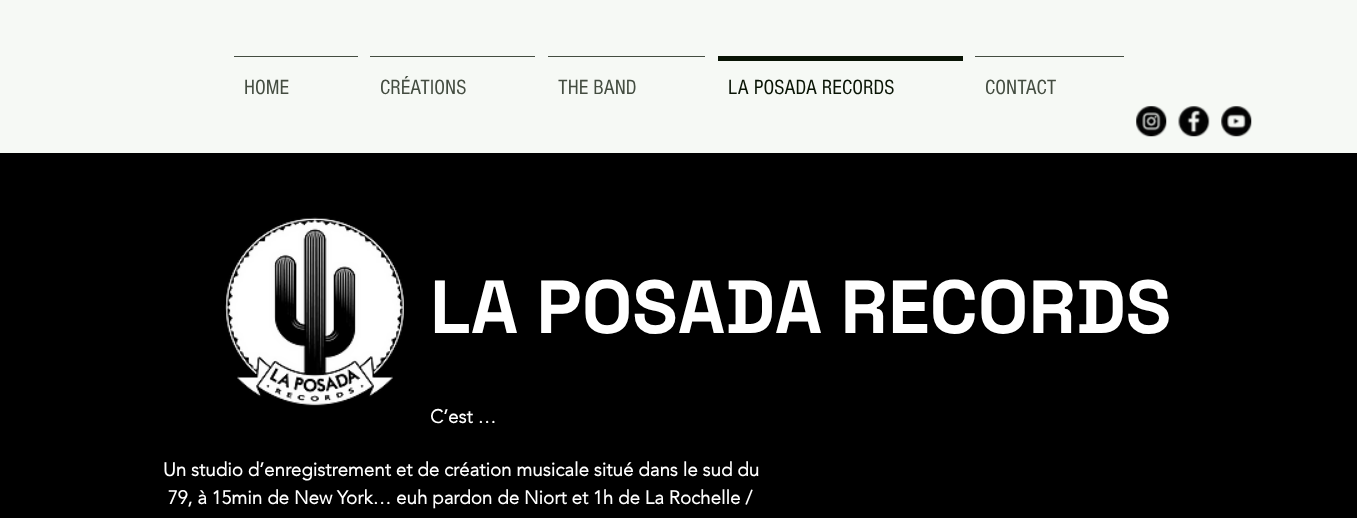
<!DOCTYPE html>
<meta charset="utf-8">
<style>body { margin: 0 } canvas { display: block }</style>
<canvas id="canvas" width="1357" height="518"></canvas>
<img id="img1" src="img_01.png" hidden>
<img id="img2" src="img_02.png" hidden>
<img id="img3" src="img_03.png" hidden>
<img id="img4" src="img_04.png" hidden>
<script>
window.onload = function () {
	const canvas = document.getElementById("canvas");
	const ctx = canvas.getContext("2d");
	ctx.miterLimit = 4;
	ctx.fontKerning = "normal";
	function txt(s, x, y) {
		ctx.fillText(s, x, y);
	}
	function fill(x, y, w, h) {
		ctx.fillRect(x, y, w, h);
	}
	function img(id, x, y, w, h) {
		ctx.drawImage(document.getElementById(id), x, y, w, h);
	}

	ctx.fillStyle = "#000000";
	fill(0, 0, 1357, 518);
	ctx.fillStyle = "#F6F9F5";
	fill(0, 0, 1357, 153);
	ctx.fillStyle = "#444D41";
	fill(234, 56, 124, 1);
	fill(370, 56, 165, 1);
	fill(548, 56, 157, 1);
	ctx.fillStyle = "#091405";
	fill(718, 56, 245, 5);
	ctx.fillStyle = "#444D41";
	fill(975, 56, 149, 1);
	img("img1", 1136, 106, 31, 31);
	img("img2", 1178, 106, 32, 31);
	img("img3", 1221, 106, 31, 31);
	img("img4", 225, 217, 179, 189);
	ctx.font = "21.25px 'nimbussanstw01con'";
	txt("HOME", 244, 94);
	txt("CRÉATIONS", 380, 94);
	txt("THE BAND", 558, 94);
	ctx.fillStyle = "#091405";
	txt("LA POSADA RECORDS", 728, 94);
	ctx.fillStyle = "#444D41";
	txt("CONTACT", 985, 94);
	ctx.font = "bold 75px Space Grotesk";
	ctx.fillStyle = "#FFFFFF";
	txt("LA POSADA RECORDS", 430, 333);
	ctx.font = "bold 18.75px 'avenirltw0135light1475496'";
	txt("C’est …", 430, 423);
	txt("Un studio d’enregistrement et de création musicale situé dans le sud du", 163, 476);
	txt("79, à 15min de New York… euh pardon de Niort et 1h de La Rochelle /", 168, 504);
};
</script>
